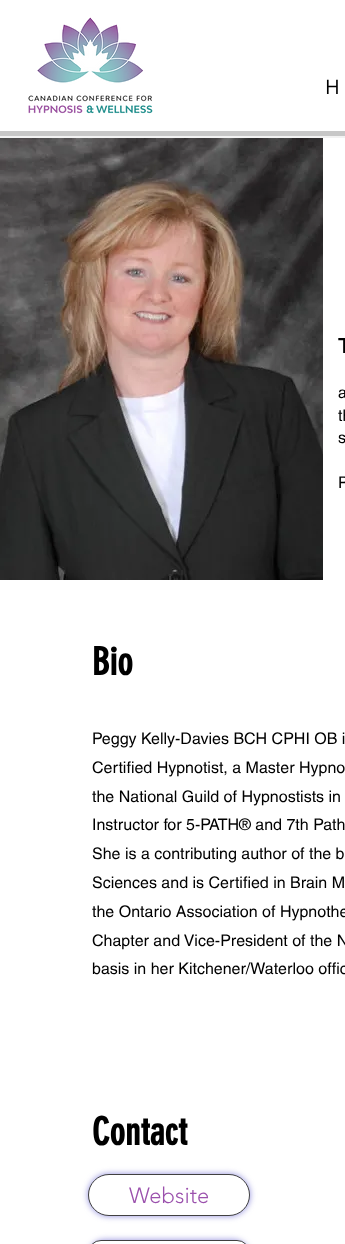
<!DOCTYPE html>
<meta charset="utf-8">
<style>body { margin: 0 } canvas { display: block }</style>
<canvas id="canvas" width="345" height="1244"></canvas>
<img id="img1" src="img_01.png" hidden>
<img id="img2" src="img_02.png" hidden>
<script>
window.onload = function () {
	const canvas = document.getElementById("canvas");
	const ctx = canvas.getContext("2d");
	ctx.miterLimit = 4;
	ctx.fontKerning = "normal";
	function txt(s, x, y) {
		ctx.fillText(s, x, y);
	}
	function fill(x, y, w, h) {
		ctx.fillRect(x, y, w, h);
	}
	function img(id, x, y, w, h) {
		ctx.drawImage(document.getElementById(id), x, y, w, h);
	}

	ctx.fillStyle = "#F2F2F2";
	fill(0, 0, 345, 1244);
	ctx.fillStyle = "#FFFFFF";
	fill(0, 0, 345, 131);
	ctx.fillStyle = "#C7C7C7";
	fill(0, 131, 345, 5);
	img("img1", 28, 17, 125, 97);
	img("img2", 0, 138, 323, 442);
	ctx.fillStyle = "#FFFFFF";
	fill(323, 138, 22, 442);
	fill(0, 580, 345, 664);
	ctx.fillStyle = "rgba(95, 91, 205, 0.7)";
	ctx.filter = "blur(3px)";
	ctx.beginPath();
	ctx.roundRect(88, 1174, 162, 42, 21);
	ctx.fill();
	ctx.filter = "none";
	ctx.fillStyle = "#FFFFFF";
	ctx.beginPath();
	ctx.roundRect(88.5, 1174.5, 161, 41, 20.5);
	ctx.fill();
	ctx.strokeStyle = "#414141";
	ctx.stroke();
	ctx.fillStyle = "rgba(95, 91, 205, 0.7)";
	ctx.filter = "blur(3px)";
	ctx.beginPath();
	ctx.roundRect(88, 1240, 162, 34, 21);
	ctx.fill();
	ctx.filter = "none";
	ctx.fillStyle = "#FFFFFF";
	ctx.beginPath();
	ctx.roundRect(88.5, 1240.5, 161, 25, 20.5);
	ctx.fill();
	ctx.stroke();
	ctx.font = "20px Open Sans";
	ctx.fillStyle = "#000000";
	txt("H", 325, 94);
	ctx.font = "bold 20px helvetica";
	txt("T", 338, 353);
	ctx.font = "16px helvetica";
	txt("a", 338, 398);
	txt("th", 338, 421);
	txt("s", 338, 443);
	txt("P", 338, 488);
	ctx.font = "bold 38px 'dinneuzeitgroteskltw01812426'";
	txt("Bio", 92, 675);
	ctx.font = "16px helvetica";
	txt("Peggy Kelly-Davies BCH CPHI OB i", 92, 744);
	txt("Certified Hypnotist, a Master Hypno", 92, 773);
	txt("the National Guild of Hypnostists in", 92, 802);
	txt("Instructor for 5-PATH® and 7th Path", 92, 830);
	txt("She is a contributing author of the b", 92, 859);
	txt("Sciences and is Certified in Brain M", 92, 888);
	txt("the Ontario Association of Hypnothe", 92, 917);
	txt("Chapter and Vice-President of the N", 92, 946);
	txt("basis in her Kitchener/Waterloo offic", 92, 974);
	ctx.font = "bold 38px 'dinneuzeitgroteskltw01812426'";
	txt("Contact", 92, 1145);
	ctx.font = "300 22px 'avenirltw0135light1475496'";
	ctx.fillStyle = "#9B51AD";
	txt("Website", 129, 1203);
};
</script>
